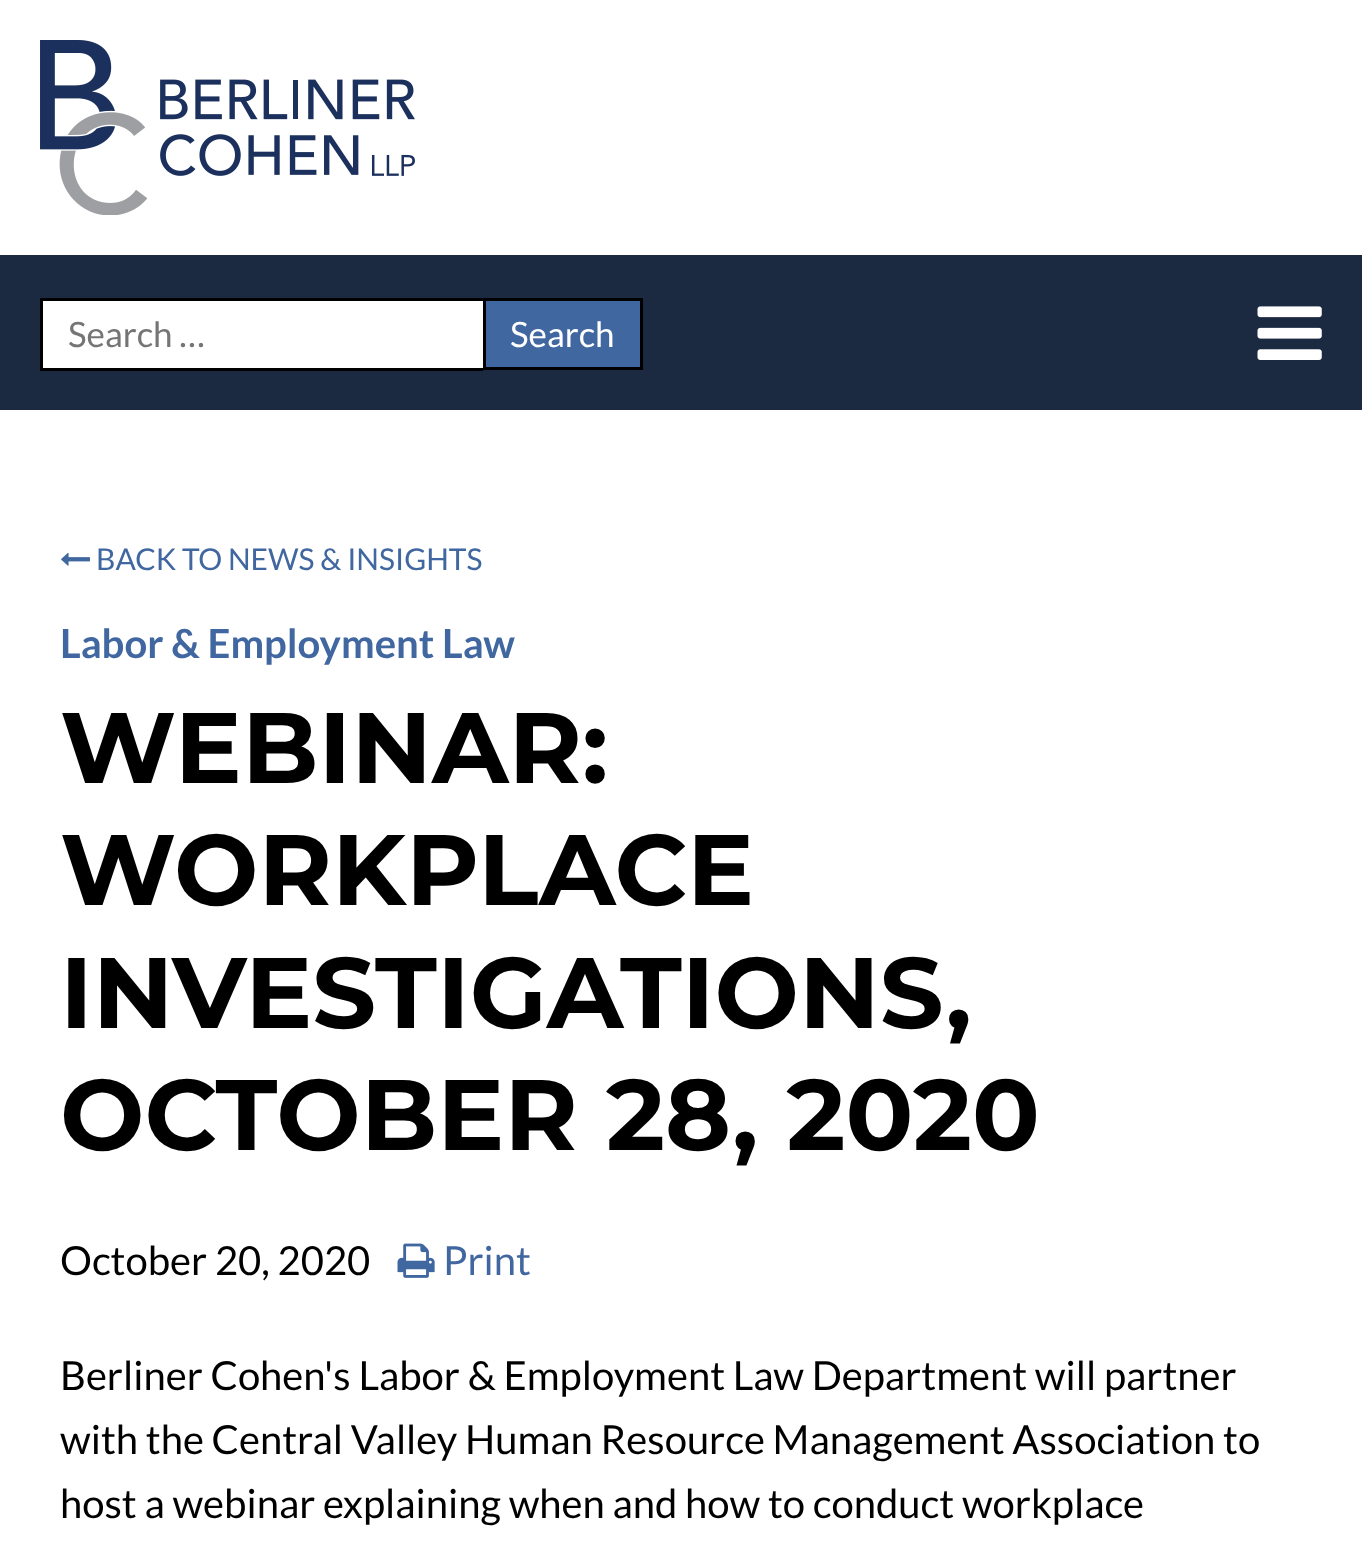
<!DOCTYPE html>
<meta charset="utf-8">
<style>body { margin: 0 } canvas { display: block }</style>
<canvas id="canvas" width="1362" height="1563"></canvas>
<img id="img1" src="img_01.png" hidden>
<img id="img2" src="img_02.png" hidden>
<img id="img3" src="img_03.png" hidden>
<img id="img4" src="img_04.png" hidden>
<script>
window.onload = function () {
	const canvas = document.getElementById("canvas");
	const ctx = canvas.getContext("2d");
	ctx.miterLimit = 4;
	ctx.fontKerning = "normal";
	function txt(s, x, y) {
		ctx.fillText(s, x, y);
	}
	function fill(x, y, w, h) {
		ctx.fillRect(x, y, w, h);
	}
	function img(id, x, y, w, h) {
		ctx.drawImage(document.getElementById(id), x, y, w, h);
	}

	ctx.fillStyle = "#FFFFFF";
	fill(0, 0, 1362, 1563);
	img("img1", 40, 40, 375, 175);
	ctx.fillStyle = "#1B2A41";
	fill(0, 255, 1362, 155);
	ctx.fillStyle = "#FFFFFF";
	fill(43, 301, 440, 67);
	ctx.fillStyle = "#000000";
	fill(40, 298, 443, 3);
	fill(40, 368, 443, 3);
	fill(40, 298, 3, 72);
	ctx.fillStyle = "#4167A0";
	ctx.beginPath();
	ctx.rect(484.5, 299.5, 157, 69);
	ctx.fill();
	ctx.strokeStyle = "#000000";
	ctx.lineWidth = 3;
	ctx.stroke();
	img("img2", 1257, 306, 65, 54);
	img("img3", 61, 552, 29, 14);
	img("img4", 397, 1243, 38, 35);
	ctx.font = "35px Lato";
	ctx.fillStyle = "#757575";
	txt("Search …", 68, 347);
	ctx.fillStyle = "#FFFFFF";
	txt("Search", 510, 347);
	ctx.font = "30px Lato";
	ctx.fillStyle = "#4167A0";
	txt("BACK TO NEWS & INSIGHTS", 96, 570);
	ctx.font = "bold 40px Lato";
	txt("Labor & Employment Law", 60, 658);
	ctx.font = "bold 100px Montserrat";
	ctx.fillStyle = "#000000";
	txt("WEBINAR:", 60, 783);
	txt("WORKPLACE", 60, 905);
	txt("INVESTIGATIONS,", 60, 1028);
	txt("OCTOBER 28, 2020", 60, 1150);
	ctx.font = "40px Lato";
	txt("October 20, 2020", 60, 1275);
	ctx.fillStyle = "#4167A0";
	txt("Print", 443, 1275);
	ctx.fillStyle = "#000000";
	txt("Berliner Cohen's Labor & Employment Law Department will partner", 60, 1390);
	txt("with the Central Valley Human Resource Management Association to", 60, 1454);
	txt("host a webinar explaining when and how to conduct workplace", 60, 1518);
};
</script>
